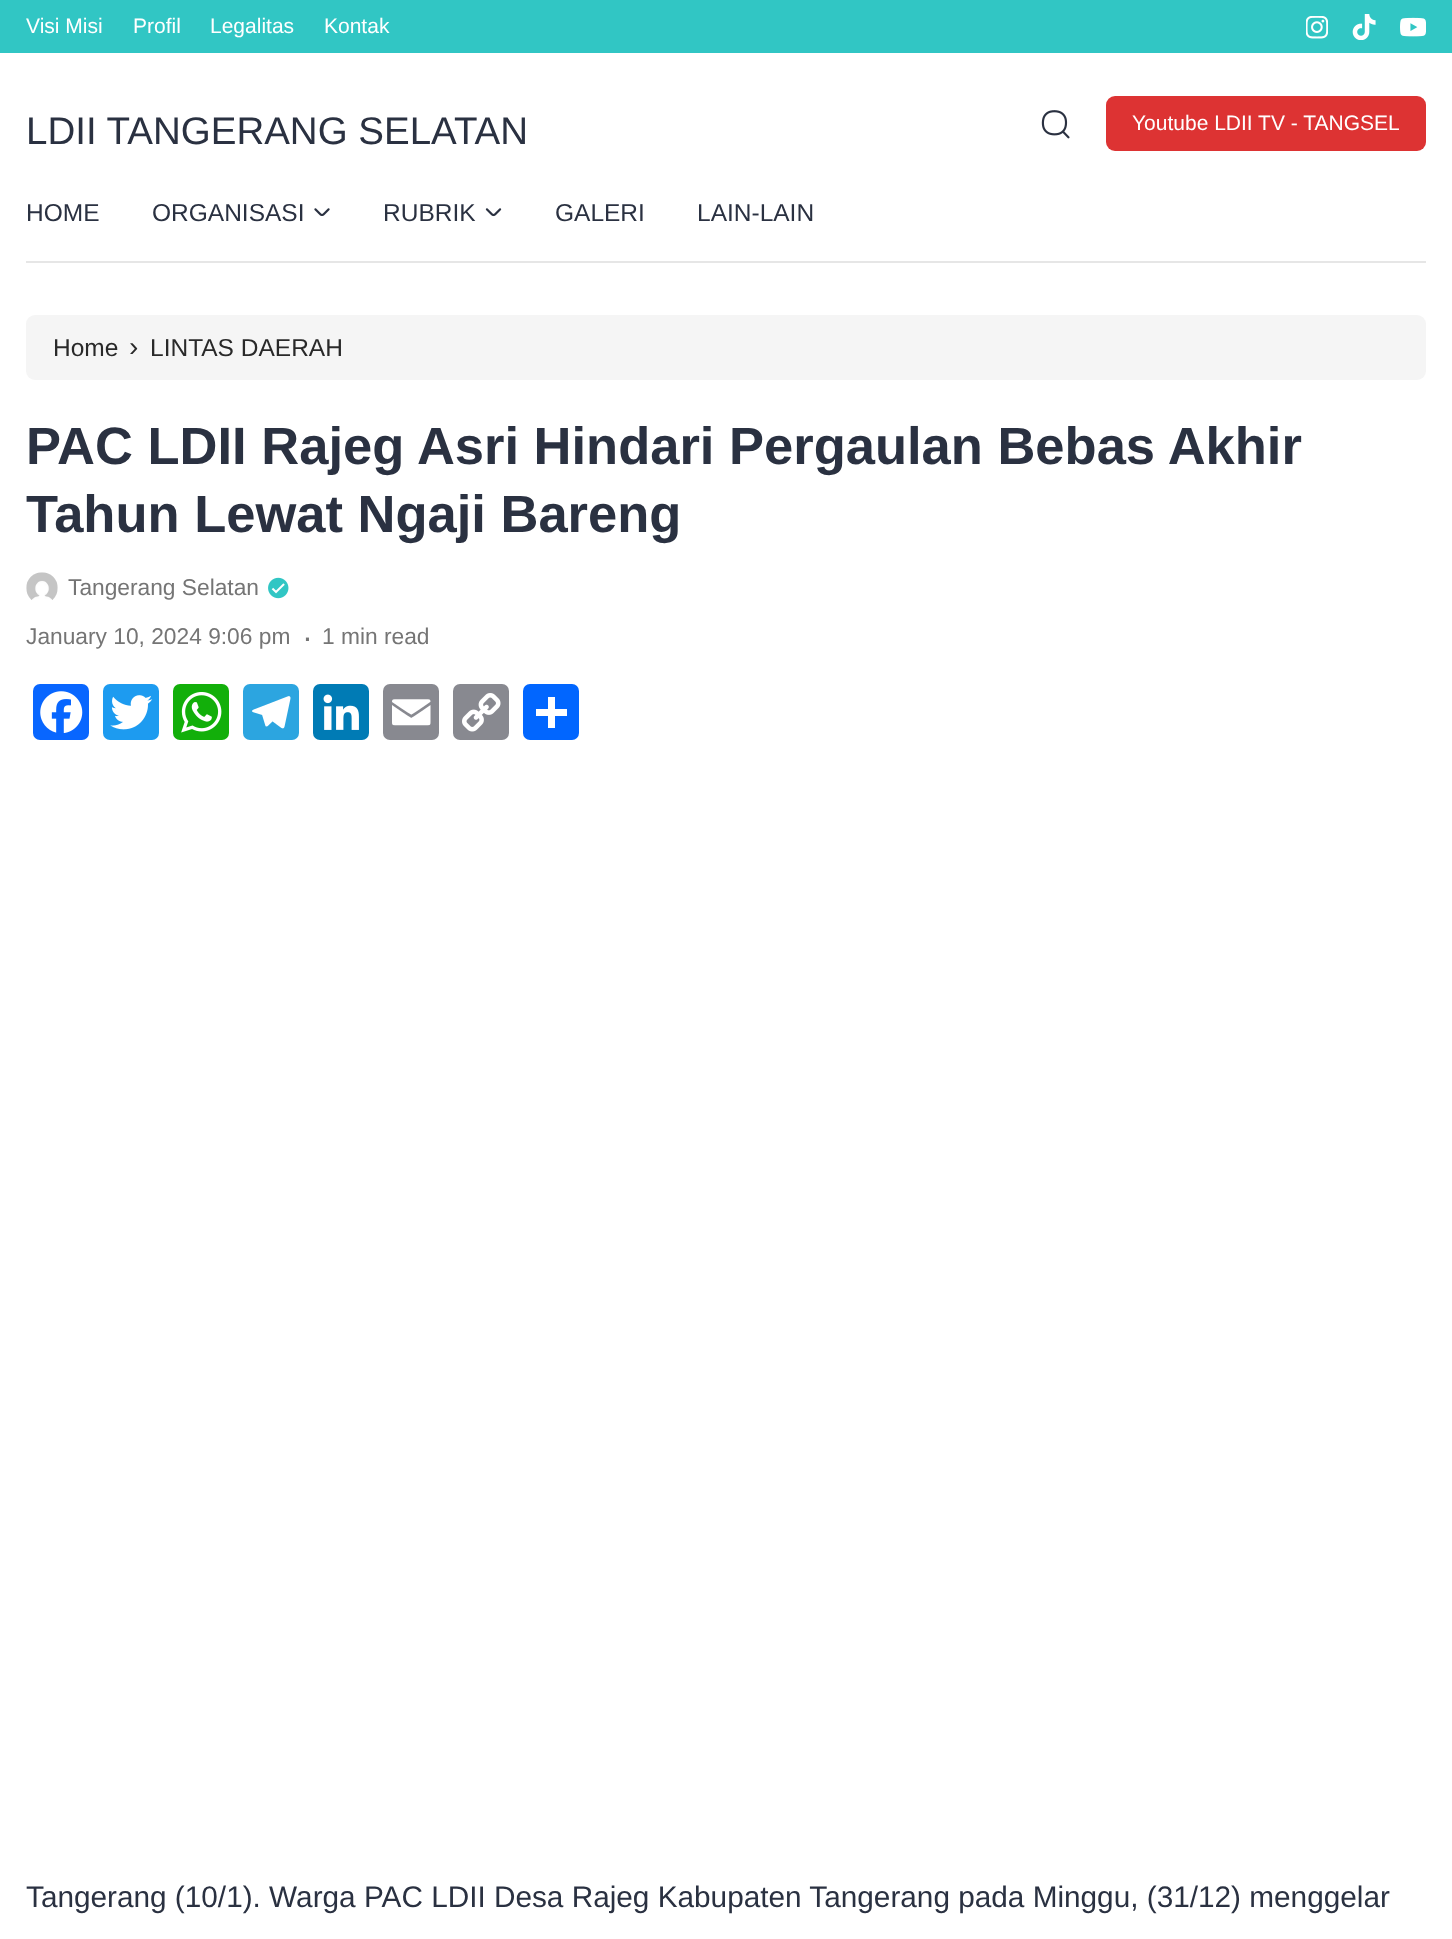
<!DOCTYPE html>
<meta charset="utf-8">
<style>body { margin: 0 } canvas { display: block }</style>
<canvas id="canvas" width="1452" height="1939"></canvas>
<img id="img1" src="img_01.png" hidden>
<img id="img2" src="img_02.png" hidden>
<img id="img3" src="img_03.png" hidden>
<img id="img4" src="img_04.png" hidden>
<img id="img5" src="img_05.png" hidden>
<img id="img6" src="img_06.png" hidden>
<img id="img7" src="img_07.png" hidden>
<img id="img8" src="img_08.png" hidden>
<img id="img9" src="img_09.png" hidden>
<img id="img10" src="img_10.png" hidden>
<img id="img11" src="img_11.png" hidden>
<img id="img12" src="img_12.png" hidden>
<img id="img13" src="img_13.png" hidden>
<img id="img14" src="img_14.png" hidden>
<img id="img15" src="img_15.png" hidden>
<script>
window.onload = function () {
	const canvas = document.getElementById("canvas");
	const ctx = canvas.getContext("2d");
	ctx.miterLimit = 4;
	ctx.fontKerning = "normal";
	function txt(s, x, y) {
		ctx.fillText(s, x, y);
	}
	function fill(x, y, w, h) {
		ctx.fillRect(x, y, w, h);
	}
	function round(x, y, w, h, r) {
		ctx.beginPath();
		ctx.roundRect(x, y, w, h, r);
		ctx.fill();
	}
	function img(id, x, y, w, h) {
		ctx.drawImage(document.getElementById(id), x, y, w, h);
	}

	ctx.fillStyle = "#FFFFFF";
	fill(0, 0, 1452, 1939);
	ctx.fillStyle = "#31C6C4";
	fill(0, 0, 1452, 53);
	img("img1", 1306, 16, 22, 23);
	img("img2", 1352, 14, 24, 26);
	img("img3", 1400, 17, 26, 20);
	img("img4", 1041, 110, 29, 29);
	ctx.fillStyle = "#DD3333";
	round(1106, 96, 320, 55, 9);
	img("img5", 314, 208, 16, 8);
	img("img6", 485, 208, 17, 9);
	ctx.fillStyle = "#E6E6E6";
	fill(26, 261, 1400, 2);
	ctx.fillStyle = "#F5F5F5";
	round(26, 315, 1400, 65, 9);
	img("img7", 26, 572, 32, 28);
	img("img8", 268, 577, 21, 22);
	ctx.fillStyle = "#0866FF";
	round(33, 684, 56, 56, 7);
	img("img9", 40, 691, 43, 42);
	ctx.fillStyle = "#1D9BF0";
	round(103, 684, 56, 56, 7);
	img("img10", 110, 695, 43, 35);
	ctx.fillStyle = "#12AF0A";
	round(173, 684, 56, 56, 7);
	img("img11", 181, 692, 41, 41);
	ctx.fillStyle = "#2CA5E0";
	round(243, 684, 56, 56, 7);
	img("img12", 252, 696, 39, 33);
	ctx.fillStyle = "#007BB5";
	round(313, 684, 56, 56, 7);
	img("img13", 323, 694, 36, 36);
	ctx.fillStyle = "#888990";
	round(383, 684, 56, 56, 7);
	img("img14", 392, 699, 39, 27);
	round(453, 684, 56, 56, 7);
	img("img15", 462, 693, 39, 39);
	ctx.fillStyle = "#0166FF";
	round(523, 684, 56, 56, 7);
	ctx.fillStyle = "#FFFFFF";
	fill(548, 697, 7, 31);
	fill(536, 709, 31, 7);
	ctx.font = "21px Liberation Sans";
	txt("Visi Misi", 26, 33);
	txt("Profil", 133, 33);
	txt("Legalitas", 210, 33);
	txt("Kontak", 324, 33);
	ctx.font = "38.5px Liberation Sans";
	ctx.fillStyle = "#2A3141";
	txt("LDII TANGERANG SELATAN", 26, 144);
	ctx.font = "21px Liberation Sans";
	ctx.fillStyle = "#FFFFFF";
	txt("Youtube LDII TV - TANGSEL", 1132, 130);
	ctx.font = "24.5px Liberation Sans";
	ctx.fillStyle = "#2A3141";
	txt("HOME", 26, 221);
	txt("ORGANISASI", 152, 221);
	txt("RUBRIK", 383, 221);
	txt("GALERI", 555, 221);
	txt("LAIN-LAIN", 697, 221);
	ctx.fillStyle = "#292929";
	txt("Home", 53, 356);
	ctx.font = "28px Liberation Sans";
	txt("›", 129, 356);
	ctx.font = "24.5px Liberation Sans";
	txt("LINTAS DAERAH", 150, 356);
	ctx.font = "bold 52.5px Liberation Sans";
	ctx.fillStyle = "#2A3141";
	txt("PAC LDII Rajeg Asri Hindari Pergaulan Bebas Akhir", 26, 464);
	txt("Tahun Lewat Ngaji Bareng", 26, 532);
	ctx.font = "22.75px Liberation Sans";
	ctx.fillStyle = "#757575";
	txt("Tangerang Selatan", 68, 595);
	txt("January 10, 2024 9:06 pm", 26, 644);
	ctx.font = "32px Liberation Sans";
	txt(".", 303, 641);
	ctx.font = "22.75px Liberation Sans";
	txt("1 min read", 322, 644);
	ctx.font = "29.75px Liberation Sans";
	ctx.fillStyle = "#2A3141";
	txt("Tangerang (10/1). Warga PAC LDII Desa Rajeg Kabupaten Tangerang pada Minggu, (31/12) menggelar", 26, 1907);
};
</script>
